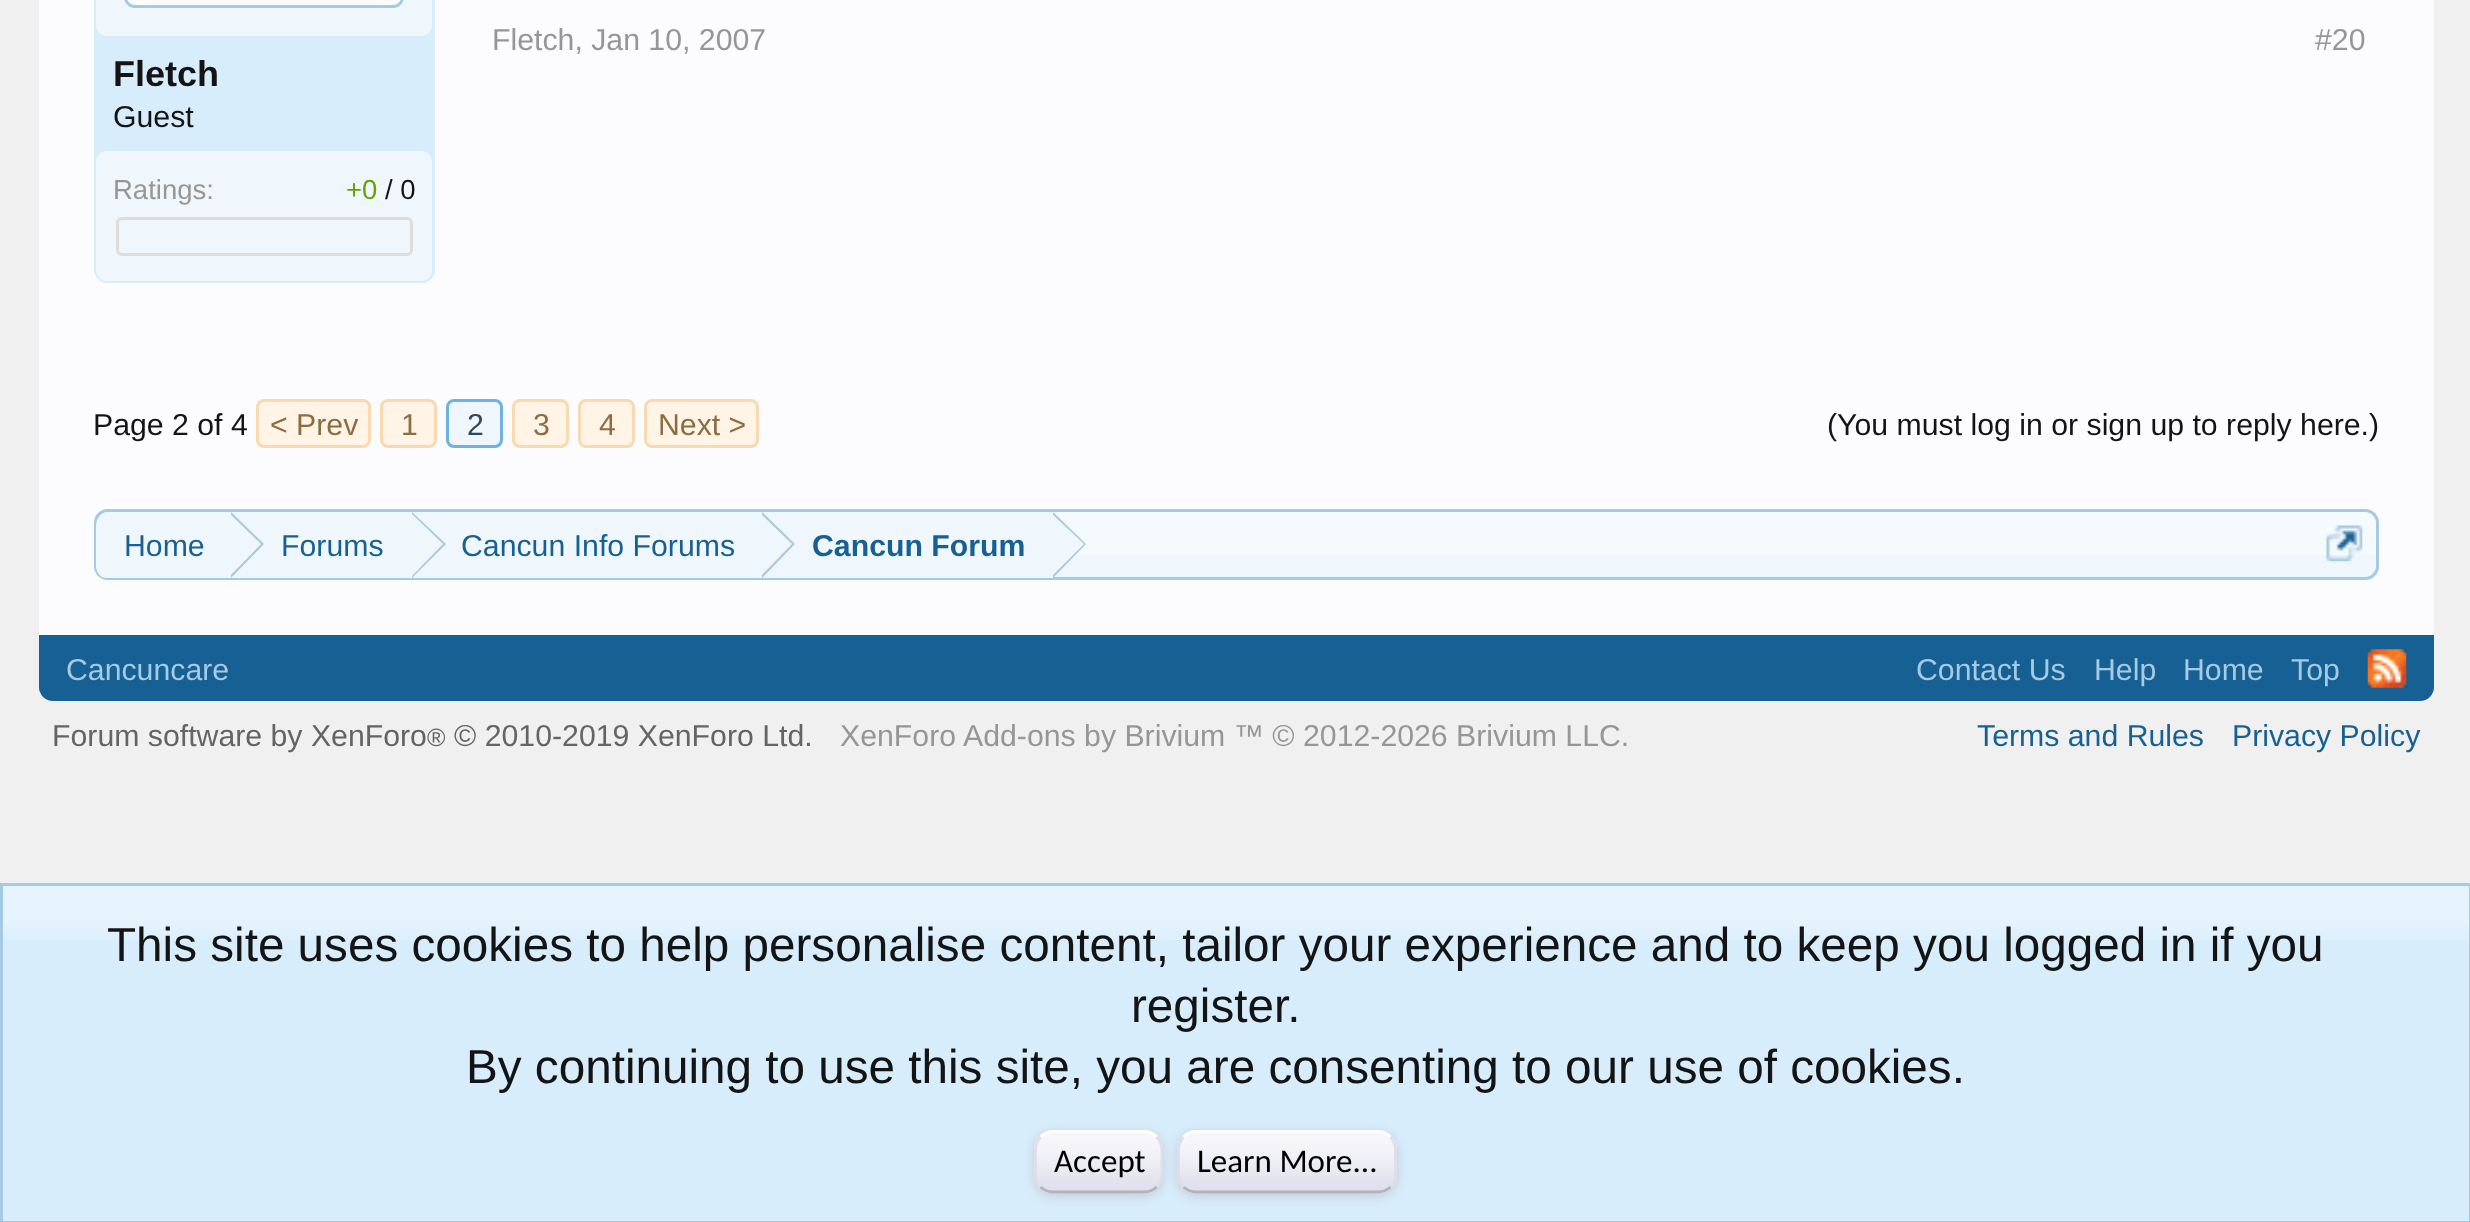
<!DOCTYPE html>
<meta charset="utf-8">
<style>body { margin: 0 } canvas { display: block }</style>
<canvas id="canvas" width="2470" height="1222"></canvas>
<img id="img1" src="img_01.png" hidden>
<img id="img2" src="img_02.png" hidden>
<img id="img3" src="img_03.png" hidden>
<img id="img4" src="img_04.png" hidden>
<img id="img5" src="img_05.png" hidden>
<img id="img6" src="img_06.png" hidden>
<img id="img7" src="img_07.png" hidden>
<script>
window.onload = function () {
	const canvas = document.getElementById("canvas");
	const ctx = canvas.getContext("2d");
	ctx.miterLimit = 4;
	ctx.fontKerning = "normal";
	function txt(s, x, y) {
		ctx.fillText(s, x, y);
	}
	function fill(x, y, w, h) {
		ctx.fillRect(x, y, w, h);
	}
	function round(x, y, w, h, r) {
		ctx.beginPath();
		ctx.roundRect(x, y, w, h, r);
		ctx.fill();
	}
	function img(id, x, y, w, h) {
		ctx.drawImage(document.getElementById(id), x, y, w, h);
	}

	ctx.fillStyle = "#F0F0F0";
	fill(0, 0, 2470, 1222);
	ctx.fillStyle = "#FCFCFF";
	fill(39, 0, 2395, 635);
	ctx.fillStyle = "#D7EDFC";
	round(94, -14, 341, 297, 14);
	img("img1", 94, 269, 340, 12);
	ctx.beginPath();
	ctx.roundRect(95.5, -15.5, 338, 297, 12.5);
	ctx.strokeStyle = "#D7EDFC";
	ctx.lineWidth = 3;
	ctx.stroke();
	ctx.fillStyle = "#F0F7FC";
	round(96, -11, 336, 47, 11);
	ctx.fillStyle = "#FCFCFF";
	ctx.beginPath();
	ctx.roundRect(125.5, -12.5, 277, 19, 9.5);
	ctx.fill();
	ctx.strokeStyle = "#A5CAE4";
	ctx.stroke();
	ctx.fillStyle = "#F0F7FC";
	round(96, 151, 336, 130, 11);
	ctx.beginPath();
	ctx.roundRect(117.5, 218.5, 294, 36, 4.5);
	ctx.strokeStyle = "#DDDDDD";
	ctx.stroke();
	ctx.fillStyle = "#FFF4E5";
	ctx.beginPath();
	ctx.roundRect(257.5, 400.5, 112, 46, 6.5);
	ctx.fill();
	ctx.strokeStyle = "#F9D9B0";
	ctx.stroke();
	ctx.beginPath();
	ctx.roundRect(381.5, 400.5, 54, 46, 6.5);
	ctx.fill();
	ctx.stroke();
	ctx.fillStyle = "#F0F7FC";
	ctx.beginPath();
	ctx.roundRect(447.5, 400.5, 54, 46, 6.5);
	ctx.fill();
	ctx.strokeStyle = "#6CB2E4";
	ctx.stroke();
	ctx.fillStyle = "#FFF4E5";
	ctx.beginPath();
	ctx.roundRect(513.5, 400.5, 54, 46, 6.5);
	ctx.fill();
	ctx.strokeStyle = "#F9D9B0";
	ctx.stroke();
	ctx.beginPath();
	ctx.roundRect(579.5, 400.5, 54, 46, 6.5);
	ctx.fill();
	ctx.stroke();
	ctx.beginPath();
	ctx.roundRect(645.5, 400.5, 112, 46, 6.5);
	ctx.fill();
	ctx.stroke();
	ctx.fillStyle = "#F0F7FC";
	round(94, 509, 2285, 71, 14);
	img("img2", 94, 512, 2284, 43);
	ctx.beginPath();
	ctx.roundRect(95.5, 510.5, 2282, 68, 12.5);
	ctx.strokeStyle = "#A5CAE4";
	ctx.stroke();
	ctx.save();
	ctx.beginPath();
	ctx.roundRect(96, 512, 2280, 66, 11);
	ctx.clip();
	ctx.beginPath();
	ctx.roundRect(96, 512, 135, 68, [14, 0, 0, 14]);
	ctx.fill();
	ctx.restore();
	fill(231, 512, 822, 66);
	ctx.fillStyle = "#A5CAE4";
	ctx.beginPath();
	ctx.moveTo(231, 578);
	ctx.lineTo(231, 512);
	ctx.lineTo(264, 544);
	ctx.closePath();
	ctx.fill();
	ctx.fillStyle = "#F0F7FC";
	ctx.beginPath();
	ctx.moveTo(228, 578);
	ctx.lineTo(228, 512);
	ctx.lineTo(261, 544);
	ctx.closePath();
	ctx.fill();
	ctx.fillStyle = "#A5CAE4";
	ctx.beginPath();
	ctx.moveTo(412, 578);
	ctx.lineTo(412, 512);
	ctx.lineTo(446, 544);
	ctx.closePath();
	ctx.fill();
	ctx.fillStyle = "#F0F7FC";
	ctx.beginPath();
	ctx.moveTo(410, 578);
	ctx.lineTo(410, 512);
	ctx.lineTo(443, 544);
	ctx.closePath();
	ctx.fill();
	ctx.fillStyle = "#A5CAE4";
	ctx.beginPath();
	ctx.moveTo(762, 578);
	ctx.lineTo(762, 512);
	ctx.lineTo(795, 544);
	ctx.closePath();
	ctx.fill();
	ctx.fillStyle = "#F0F7FC";
	ctx.beginPath();
	ctx.moveTo(759, 578);
	ctx.lineTo(759, 512);
	ctx.lineTo(792, 544);
	ctx.closePath();
	ctx.fill();
	ctx.fillStyle = "#A5CAE4";
	ctx.beginPath();
	ctx.moveTo(1053, 578);
	ctx.lineTo(1053, 512);
	ctx.lineTo(1086, 544);
	ctx.closePath();
	ctx.fill();
	ctx.fillStyle = "#F0F7FC";
	ctx.beginPath();
	ctx.moveTo(1050, 578);
	ctx.lineTo(1050, 512);
	ctx.lineTo(1084, 544);
	ctx.closePath();
	ctx.fill();
	img("img3", 2326, 525, 37, 37);
	ctx.fillStyle = "#176093";
	ctx.beginPath();
	ctx.roundRect(39, 635, 2395, 66, [0, 0, 14, 14]);
	ctx.fill();
	img("img4", 2367, 649, 40, 39);
	ctx.fillStyle = "#D7EDFC";
	fill(3, 886, 2466, 335);
	img("img5", 3, 886, 2466, 54);
	ctx.strokeRect(1.5, 884.5, 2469, 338);
	ctx.fillStyle = "#C8C8D2";
	ctx.filter = "blur(5.5px)";
	ctx.beginPath();
	ctx.roundRect(1034, 1133, 129, 63, 19);
	ctx.fill();
	ctx.filter = "none";
	ctx.fillStyle = "#DCDCEB";
	round(1034, 1130, 129, 64, 19);
	img("img6", 1034, 1133, 129, 57);
	ctx.beginPath();
	ctx.moveTo(1040.5, 1137);
	ctx.bezierCurveTo(1044, 1133.5, 1048.5, 1131.5, 1053, 1131.5);
	ctx.lineTo(1144, 1131.5);
	ctx.bezierCurveTo(1148.5, 1131.5, 1153.5, 1133.5, 1156.5, 1137);
	ctx.strokeStyle = "#FFFFFF";
	ctx.lineWidth = 2.8;
	ctx.stroke();
	ctx.beginPath();
	ctx.moveTo(1156.5, 1137);
	ctx.bezierCurveTo(1163.5, 1143.5, 1162, 1153, 1162, 1162);
	ctx.bezierCurveTo(1162, 1170.5, 1163.5, 1180, 1156.5, 1187);
	ctx.strokeStyle = "#DDDDEB";
	ctx.stroke();
	ctx.beginPath();
	ctx.moveTo(1156.5, 1187);
	ctx.bezierCurveTo(1153.5, 1190, 1148.5, 1192, 1144, 1192);
	ctx.lineTo(1053, 1192);
	ctx.bezierCurveTo(1048.5, 1192, 1044, 1190, 1040.5, 1187);
	ctx.strokeStyle = "#B3B3BD";
	ctx.stroke();
	ctx.beginPath();
	ctx.moveTo(1040.5, 1187);
	ctx.bezierCurveTo(1034, 1180, 1035.5, 1170.5, 1035.5, 1162);
	ctx.bezierCurveTo(1035.5, 1153, 1034, 1143.5, 1040.5, 1137);
	ctx.strokeStyle = "#DDDDEB";
	ctx.stroke();
	ctx.fillStyle = "#C8C8D2";
	ctx.filter = "blur(5.5px)";
	ctx.beginPath();
	ctx.roundRect(1177, 1133, 220, 63, 19);
	ctx.fill();
	ctx.filter = "none";
	ctx.fillStyle = "#DCDCEB";
	round(1177, 1130, 220, 64, 19);
	img("img7", 1177, 1133, 220, 57);
	ctx.beginPath();
	ctx.moveTo(1183.5, 1137);
	ctx.bezierCurveTo(1187, 1133.5, 1191.5, 1131.5, 1196, 1131.5);
	ctx.lineTo(1378, 1131.5);
	ctx.bezierCurveTo(1382.5, 1131.5, 1387, 1133.5, 1390.5, 1137);
	ctx.strokeStyle = "#FFFFFF";
	ctx.stroke();
	ctx.beginPath();
	ctx.moveTo(1390.5, 1137);
	ctx.bezierCurveTo(1397, 1143.5, 1395.5, 1153, 1395.5, 1162);
	ctx.bezierCurveTo(1395.5, 1170.5, 1397, 1180, 1390.5, 1187);
	ctx.strokeStyle = "#DDDDEB";
	ctx.stroke();
	ctx.beginPath();
	ctx.moveTo(1390.5, 1187);
	ctx.bezierCurveTo(1387, 1190, 1382.5, 1192, 1378, 1192);
	ctx.lineTo(1196, 1192);
	ctx.bezierCurveTo(1191.5, 1192, 1187, 1190, 1183.5, 1187);
	ctx.strokeStyle = "#B3B3BD";
	ctx.stroke();
	ctx.beginPath();
	ctx.moveTo(1183.5, 1187);
	ctx.bezierCurveTo(1177, 1180, 1178.5, 1170.5, 1178.5, 1162);
	ctx.bezierCurveTo(1178.5, 1153, 1177, 1143.5, 1183.5, 1137);
	ctx.strokeStyle = "#DDDDEB";
	ctx.stroke();
	ctx.font = "30.25px Liberation Sans";
	ctx.fillStyle = "#969696";
	txt("Fletch, Jan 10, 2007", 492, 50);
	txt("#20", 2315, 50);
	ctx.font = "bold 36px Liberation Sans";
	ctx.fillStyle = "#141414";
	txt("Fletch", 113, 86);
	ctx.font = "30.25px Liberation Sans";
	txt("Guest", 113, 127);
	ctx.font = "27.5px Liberation Sans";
	ctx.fillStyle = "#969696";
	txt("Ratings:", 113, 199);
	ctx.fillStyle = "#62A201";
	txt("+0", 346, 199);
	ctx.fillStyle = "#141414";
	txt("/ 0", 385, 199);
	ctx.font = "30.25px Liberation Sans";
	txt("Page 2 of 4", 93, 435);
	ctx.fillStyle = "#8F6C3F";
	txt("< Prev", 270, 435);
	txt("1", 401, 435);
	ctx.fillStyle = "#2B485C";
	txt("2", 467, 435);
	ctx.fillStyle = "#8F6C3F";
	txt("3", 533, 435);
	txt("4", 599, 435);
	txt("Next >", 658, 435);
	ctx.fillStyle = "#141414";
	txt("(You must log in or sign up to reply here.)", 1827, 435);
	ctx.fillStyle = "#176093";
	txt("Home", 124, 556);
	txt("Forums", 281, 556);
	txt("Cancun Info Forums", 461, 556);
	ctx.font = "bold 30.25px Liberation Sans";
	txt("Cancun Forum", 812, 556);
	ctx.font = "30.25px Liberation Sans";
	ctx.fillStyle = "#A5CAE4";
	txt("Cancuncare", 66, 680);
	txt("Contact Us", 1916, 680);
	txt("Help", 2094, 680);
	txt("Home", 2183, 680);
	txt("Top", 2291, 680);
	ctx.fillStyle = "#646464";
	txt("Forum software by XenForo", 52, 746);
	ctx.font = "25px Liberation Sans";
	txt("®", 427, 746);
	ctx.font = "30.25px Liberation Sans";
	txt("© 2010-2019 XenForo Ltd.", 454, 746);
	ctx.fillStyle = "#969696";
	txt("XenForo", 840, 746);
	txt("Add-ons by Brivium ™ © 2012-2026 Brivium LLC.", 963, 746);
	ctx.fillStyle = "#176093";
	txt("Terms and Rules", 1977, 746);
	txt("Privacy Policy", 2232, 746);
	ctx.font = "47.65px Liberation Sans";
	ctx.fillStyle = "#141414";
	txt("This site uses cookies to help personalise content, tailor your experience and to keep you logged in if you", 107, 961);
	txt("register.", 1131, 1022);
	txt("By continuing to use this site, you are consenting to our use of cookies.", 466, 1083);
	ctx.font = "33px Carlito";
	ctx.fillStyle = "#000000";
	txt("Accept", 1054, 1172);
	txt("Learn More...", 1197, 1172);
};
</script>
